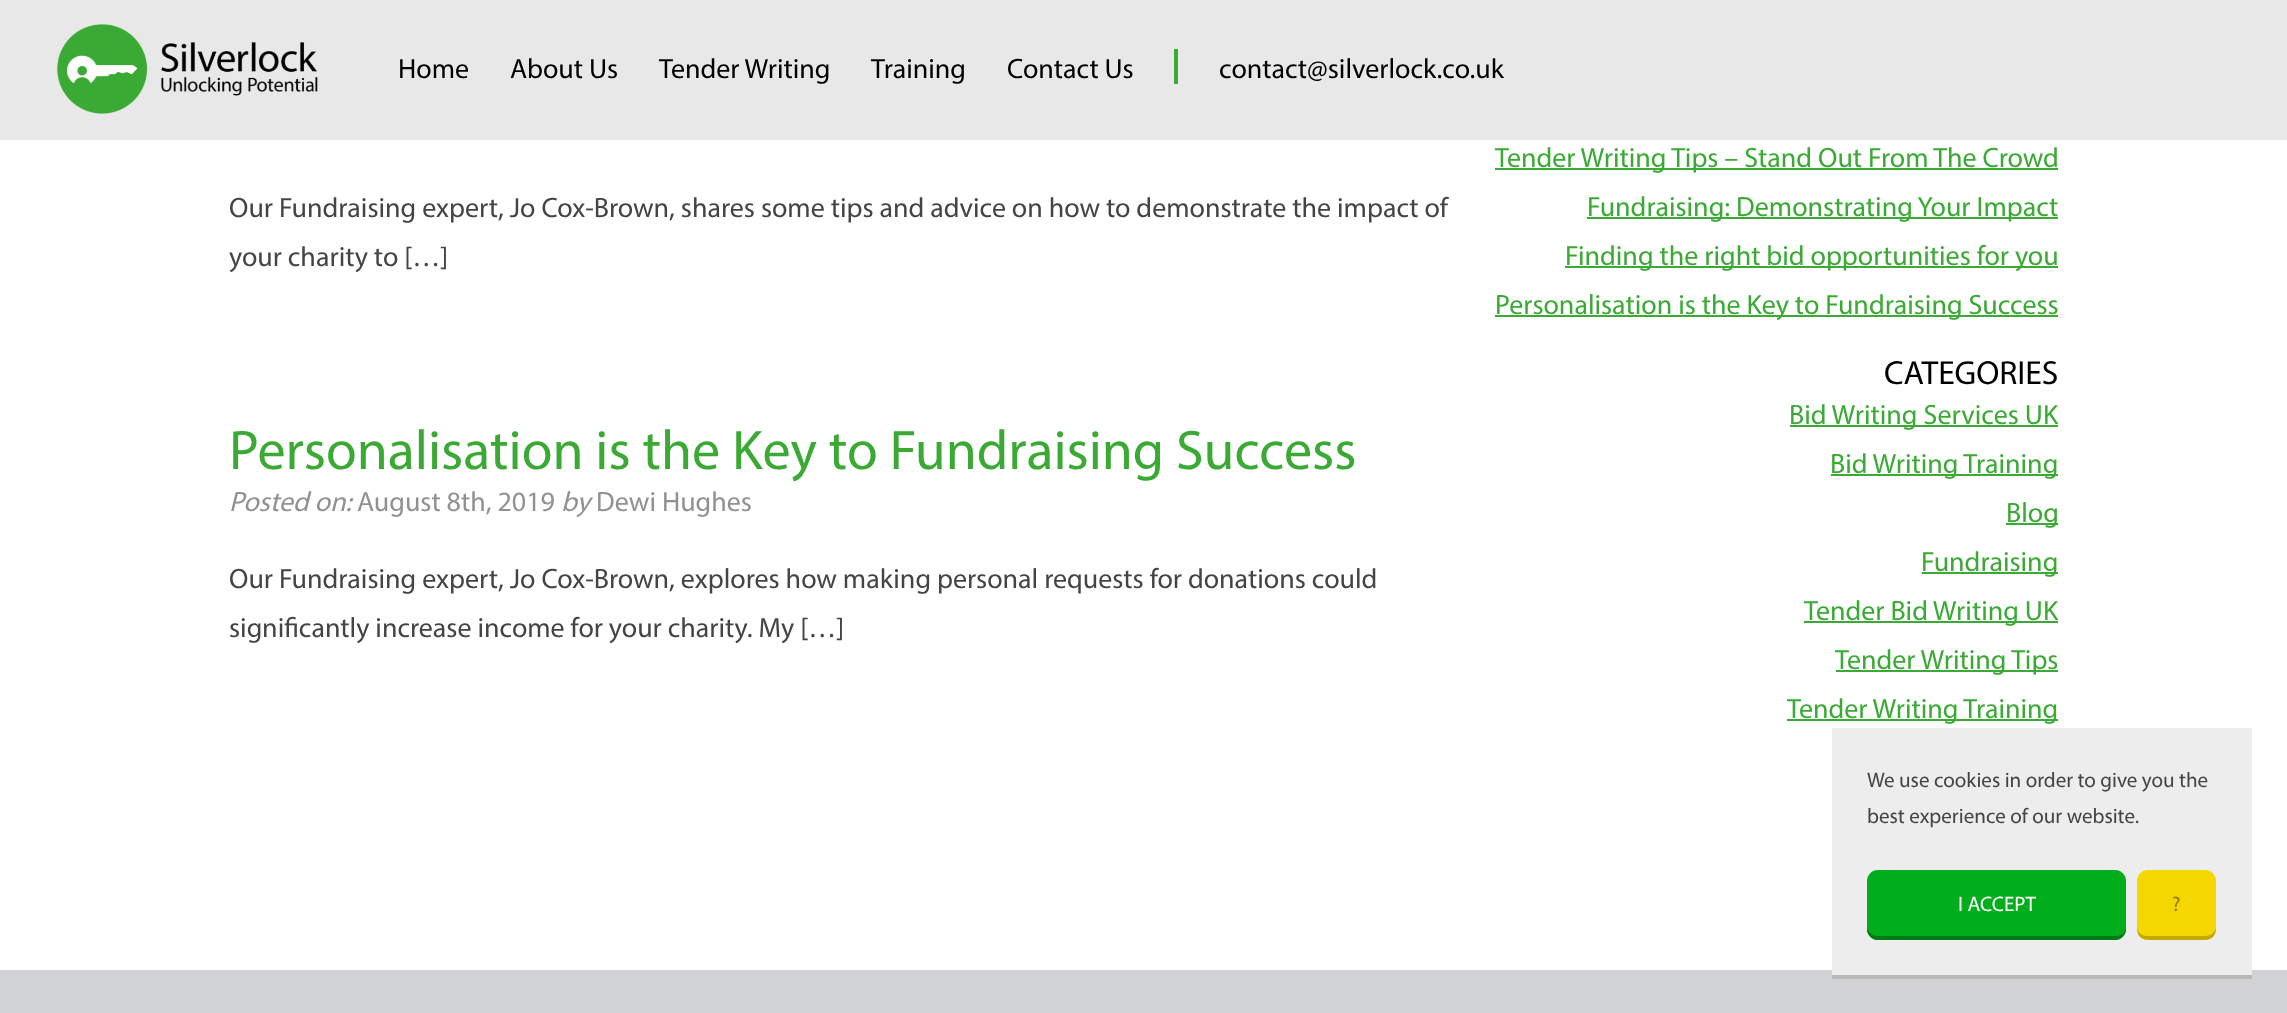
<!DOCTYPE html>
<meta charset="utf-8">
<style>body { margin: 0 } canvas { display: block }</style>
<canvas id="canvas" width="2287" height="1013"></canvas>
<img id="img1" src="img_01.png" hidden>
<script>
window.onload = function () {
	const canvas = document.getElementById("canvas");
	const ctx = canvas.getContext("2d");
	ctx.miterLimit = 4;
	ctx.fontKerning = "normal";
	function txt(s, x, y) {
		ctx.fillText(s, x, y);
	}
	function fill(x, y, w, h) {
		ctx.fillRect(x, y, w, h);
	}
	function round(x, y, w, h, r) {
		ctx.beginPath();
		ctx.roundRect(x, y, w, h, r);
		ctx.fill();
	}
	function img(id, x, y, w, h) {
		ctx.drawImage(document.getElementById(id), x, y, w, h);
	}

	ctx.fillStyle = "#FFFFFF";
	fill(0, 0, 2287, 1013);
	ctx.fillStyle = "#E8E8E8";
	fill(0, 0, 2287, 140);
	img("img1", 57, 24, 261, 90);
	ctx.fillStyle = "#3AAA35";
	fill(1174, 49, 4, 35);
	fill(1495, 168, 563, 2);
	fill(1587, 217, 471, 2);
	fill(1565, 266, 493, 2);
	fill(1495, 315, 563, 2);
	fill(1790, 425, 268, 2);
	fill(1831, 474, 227, 2);
	fill(2006, 523, 52, 2);
	fill(1922, 572, 136, 2);
	fill(1804, 621, 254, 2);
	fill(1836, 670, 222, 2);
	fill(1787, 719, 271, 2);
	ctx.fillStyle = "#D1D2D4";
	fill(0, 970, 2287, 43);
	ctx.fillStyle = "#EDEDED";
	fill(1832, 728, 420, 247);
	ctx.fillStyle = "#B9B9B9";
	fill(1832, 975, 420, 4);
	ctx.fillStyle = "#00AD1B";
	round(1867, 870, 259, 70, 11);
	ctx.fillStyle = "#007A13";
	ctx.beginPath();
	ctx.moveTo(1867, 926);
	ctx.lineTo(1867, 929);
	ctx.bezierCurveTo(1867, 935, 1872, 940, 1878, 940);
	ctx.lineTo(2115, 940);
	ctx.bezierCurveTo(2121, 940, 2126, 935, 2126, 929);
	ctx.lineTo(2126, 926);
	ctx.bezierCurveTo(2126, 932, 2122, 936, 2116, 936);
	ctx.lineTo(1878, 936);
	ctx.bezierCurveTo(1872, 936, 1867, 932, 1867, 926);
	ctx.closePath();
	ctx.fill();
	ctx.fillStyle = "#F4D700";
	round(2137, 870, 79, 70, 11);
	ctx.fillStyle = "#C1AA00";
	ctx.beginPath();
	ctx.moveTo(2137, 926);
	ctx.bezierCurveTo(2137, 941, 2145, 940, 2158, 940);
	ctx.lineTo(2196, 940);
	ctx.bezierCurveTo(2208, 940, 2216, 941, 2216, 926);
	ctx.bezierCurveTo(2216, 932, 2211, 936, 2205, 936);
	ctx.lineTo(2147, 936);
	ctx.bezierCurveTo(2141, 936, 2137, 932, 2137, 926);
	ctx.closePath();
	ctx.fill();
	ctx.font = "28px Myriad";
	ctx.fillStyle = "#000000";
	txt("Home", 398, 78);
	txt("About Us", 510, 78);
	txt("Tender Writing", 659, 78);
	txt("Training", 871, 78);
	txt("Contact Us", 1007, 78);
	txt("contact@silverlock.co.uk", 1219, 78);
	ctx.fillStyle = "#444444";
	txt("Our Fundraising expert, Jo Cox-Brown, shares some tips and advice on how to demonstrate the impact of", 229, 217);
	txt("your charity to […]", 229, 266);
	ctx.font = "56px Myriad";
	ctx.fillStyle = "#3AAA35";
	txt("Personalisation is the Key to Fundraising Success", 229, 469);
	ctx.font = "italic 28px Myriad";
	ctx.fillStyle = "#919191";
	txt("Posted on:", 229, 511);
	ctx.font = "28px Myriad";
	txt("August 8th, 2019", 357, 511);
	ctx.font = "italic 28px Myriad";
	txt("by", 561, 511);
	ctx.font = "28px Myriad";
	txt("Dewi Hughes", 596, 511);
	ctx.fillStyle = "#444444";
	txt("Our Fundraising expert, Jo Cox-Brown, explores how making personal requests for donations could", 229, 588);
	txt("significantly increase income for your charity. My […]", 229, 637);
	ctx.fillStyle = "#3AAA35";
	txt("Tender Writing Tips – Stand Out From The Crowd", 1495, 167);
	txt("Fundraising: Demonstrating Your Impact", 1587, 216);
	txt("Finding the right bid opportunities for you", 1565, 265);
	txt("Personalisation is the Key to Fundraising Success", 1495, 314);
	ctx.font = "33.5px Myriad";
	ctx.fillStyle = "#000000";
	txt("CATEGORIES", 1884, 384);
	ctx.font = "28px Myriad";
	ctx.fillStyle = "#3AAA35";
	txt("Bid Writing Services UK", 1789, 424);
	txt("Bid Writing Training", 1830, 473);
	txt("Blog", 2006, 522);
	txt("Fundraising", 1921, 571);
	txt("Tender Bid Writing UK", 1804, 620);
	txt("Tender Writing Tips", 1835, 669);
	txt("Tender Writing Training", 1787, 718);
	ctx.font = "21px Myriad";
	ctx.fillStyle = "#444444";
	txt("We use cookies in order to give you the", 1867, 787);
	txt("best experience of our website.", 1867, 823);
	ctx.fillStyle = "#FFFFFF";
	txt("I ACCEPT", 1958, 911);
	ctx.fillStyle = "#8E7D00";
	txt("?", 2172, 911);
};
</script>
